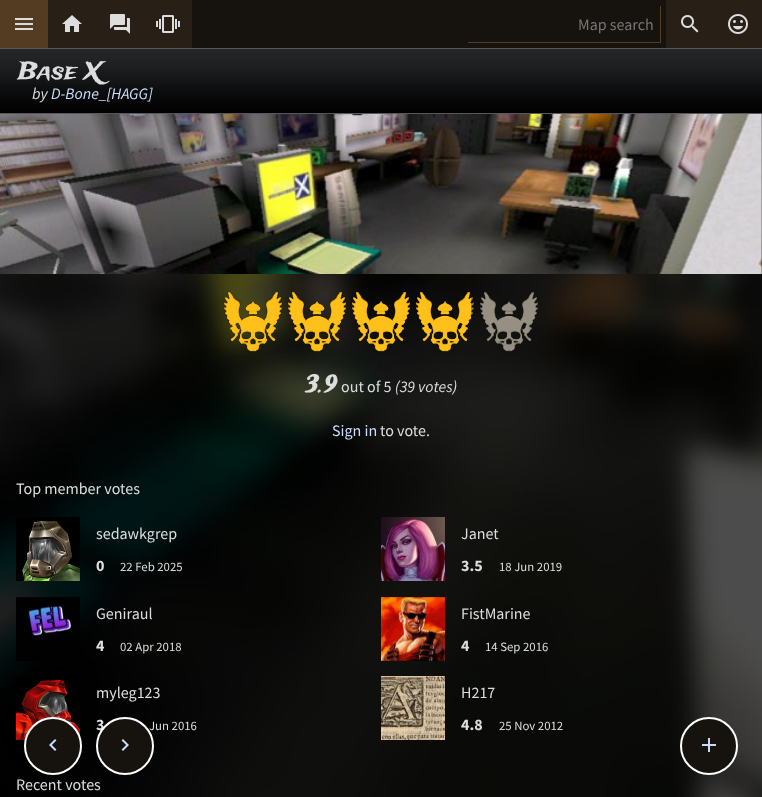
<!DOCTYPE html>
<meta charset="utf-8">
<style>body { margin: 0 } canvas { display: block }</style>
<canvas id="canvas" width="762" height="797"></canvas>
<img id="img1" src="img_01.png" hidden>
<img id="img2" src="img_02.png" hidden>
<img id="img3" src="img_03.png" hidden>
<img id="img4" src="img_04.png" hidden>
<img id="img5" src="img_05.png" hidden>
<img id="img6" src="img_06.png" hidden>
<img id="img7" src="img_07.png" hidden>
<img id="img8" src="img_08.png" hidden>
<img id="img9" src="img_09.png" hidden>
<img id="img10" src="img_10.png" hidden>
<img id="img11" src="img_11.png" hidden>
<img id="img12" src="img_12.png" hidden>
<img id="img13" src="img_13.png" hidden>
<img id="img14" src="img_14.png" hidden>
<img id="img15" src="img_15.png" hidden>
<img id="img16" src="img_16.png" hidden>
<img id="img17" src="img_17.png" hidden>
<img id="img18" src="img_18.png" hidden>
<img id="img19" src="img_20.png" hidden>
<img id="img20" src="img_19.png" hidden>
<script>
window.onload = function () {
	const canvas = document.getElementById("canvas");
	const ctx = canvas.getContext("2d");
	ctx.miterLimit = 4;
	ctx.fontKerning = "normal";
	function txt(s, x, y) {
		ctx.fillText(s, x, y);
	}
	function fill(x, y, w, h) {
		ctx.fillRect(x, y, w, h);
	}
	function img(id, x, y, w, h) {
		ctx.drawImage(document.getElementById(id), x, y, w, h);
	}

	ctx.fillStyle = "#FFFFFF";
	fill(0, 0, 762, 797);
	ctx.fillStyle = "#16130F";
	fill(192, 0, 474, 48);
	ctx.fillStyle = "#543C22";
	fill(0, 0, 48, 48);
	img("img1", 15, 18, 18, 12);
	ctx.fillStyle = "#282016";
	fill(48, 0, 144, 48);
	img("img2", 62, 15, 20, 17);
	fill(666, 0, 96, 48);
	img("img3", 681, 15, 18, 18);
	img("img4", 728, 14, 20, 20);
	img("img5", 110, 14, 20, 20);
	img("img6", 156, 15, 24, 18);
	ctx.fillStyle = "#543C22";
	fill(660, 6, 1, 37);
	fill(468, 42, 193, 1);
	img("img7", 0, 49, 762, 64);
	ctx.fillStyle = "#56585D";
	fill(0, 48, 762, 1);
	fill(0, 113, 762, 1);
	img("img8", 0, 114, 762, 683);
	img("img9", 0, 114, 762, 160);
	img("img10", 223, 292, 315, 60);
	img("img11", 224, 292, 247, 60);
	img("img12", 16, 517, 64, 64);
	img("img13", 381, 517, 64, 64);
	img("img14", 16, 597, 64, 64);
	img("img15", 381, 597, 64, 64);
	img("img16", 16, 676, 64, 64);
	img("img17", 381, 676, 64, 64);
	ctx.fillStyle = "#16130F";
	ctx.beginPath();
	ctx.arc(53, 746, 28, 0, Math.PI * 2);
	ctx.fill();
	ctx.strokeStyle = "#FFFFFF";
	ctx.lineWidth = 2;
	ctx.stroke();
	img("img18", 49, 739, 8, 12);
	ctx.beginPath();
	ctx.arc(709, 746, 28, 0, Math.PI * 2);
	ctx.fill();
	ctx.stroke();
	img("img19", 702, 738, 14, 14);
	ctx.font = "16px Source Sans Pro";
	ctx.fillStyle = "#757575";
	txt("Map search", 578, 30);
	ctx.font = "24px Trade Winds";
	ctx.fillStyle = "#DDDDDD";
	txt("Base X", 18, 79);
	ctx.font = "italic 16px Source Sans Pro";
	txt("by", 32, 99);
	ctx.fillStyle = "#CCDDFF";
	txt("D-Bone_[HAGG]", 51, 99);
	ctx.font = "24px Trade Winds";
	ctx.fillStyle = "#DDDDDD";
	txt("3.9", 305, 392);
	ctx.font = "16px Source Sans Pro";
	txt("out of 5", 341, 392);
	ctx.font = "italic 16px Source Sans Pro";
	txt("(39 votes)", 395, 392);
	ctx.font = "16px Source Sans Pro";
	ctx.fillStyle = "#CCDDFF";
	txt("Sign in", 332, 436);
	ctx.fillStyle = "#DDDDDD";
	txt("to vote.", 380, 436);
	txt("Top member votes", 16, 494);
	txt("sedawkgrep", 96, 539);
	ctx.font = "bold 16px Source Sans Pro";
	txt("0", 96, 571);
	ctx.font = "12.75px Source Sans Pro";
	txt("22 Feb 2025", 120, 571);
	ctx.font = "16px Source Sans Pro";
	txt("Janet", 461, 539);
	ctx.font = "bold 16px Source Sans Pro";
	txt("3.5", 461, 571);
	ctx.font = "12.75px Source Sans Pro";
	txt("18 Jun 2019", 499, 571);
	ctx.font = "16px Source Sans Pro";
	txt("Geniraul", 96, 619);
	ctx.font = "bold 16px Source Sans Pro";
	txt("4", 96, 651);
	ctx.font = "12.75px Source Sans Pro";
	txt("02 Apr 2018", 120, 651);
	ctx.font = "16px Source Sans Pro";
	txt("FistMarine", 461, 619);
	ctx.font = "bold 16px Source Sans Pro";
	txt("4", 461, 651);
	ctx.font = "12.75px Source Sans Pro";
	txt("14 Sep 2016", 485, 651);
	ctx.font = "16px Source Sans Pro";
	txt("myleg123", 96, 698);
	ctx.font = "bold 16px Source Sans Pro";
	txt("3", 96, 730);
	ctx.font = "12.75px Source Sans Pro";
	txt("Jun 2016", 149, 730);
	ctx.font = "16px Source Sans Pro";
	txt("H217", 461, 698);
	ctx.font = "bold 16px Source Sans Pro";
	txt("4.8", 461, 730);
	ctx.font = "12.75px Source Sans Pro";
	txt("25 Nov 2012", 499, 730);
	ctx.font = "16px Source Sans Pro";
	txt("Recent votes", 16, 790);
	ctx.fillStyle = "#16130F";
	ctx.beginPath();
	ctx.arc(125, 746, 28, 0, Math.PI * 2);
	ctx.fill();
	ctx.stroke();
	img("img20", 121, 739, 8, 12);
};
</script>
